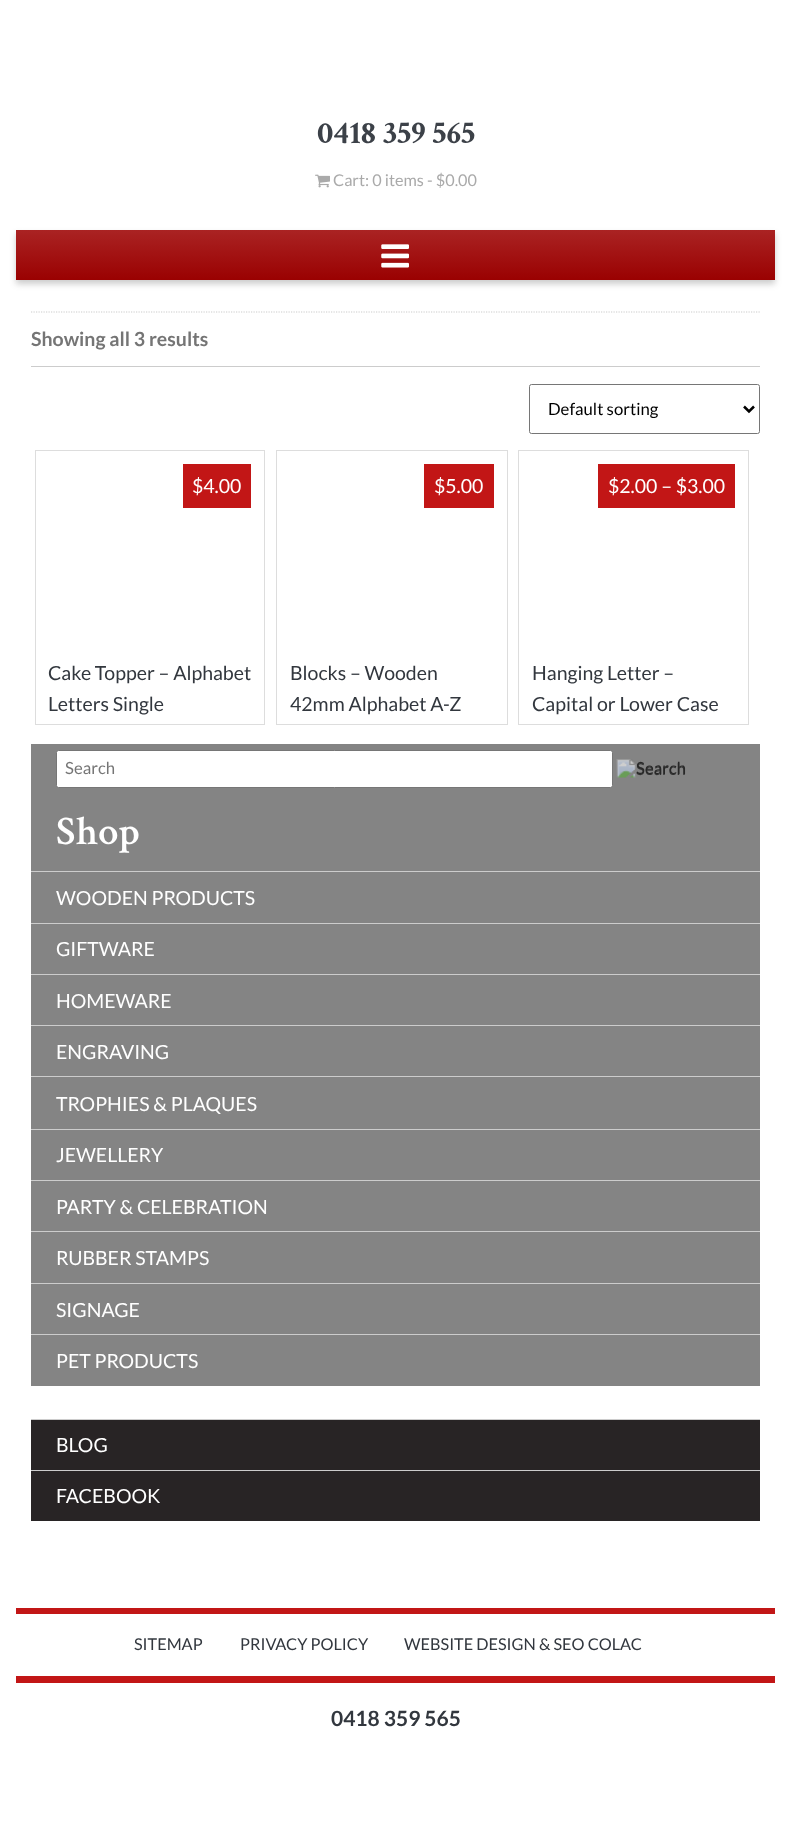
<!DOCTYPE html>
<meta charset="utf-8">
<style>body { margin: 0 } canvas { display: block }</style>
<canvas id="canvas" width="791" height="1823"></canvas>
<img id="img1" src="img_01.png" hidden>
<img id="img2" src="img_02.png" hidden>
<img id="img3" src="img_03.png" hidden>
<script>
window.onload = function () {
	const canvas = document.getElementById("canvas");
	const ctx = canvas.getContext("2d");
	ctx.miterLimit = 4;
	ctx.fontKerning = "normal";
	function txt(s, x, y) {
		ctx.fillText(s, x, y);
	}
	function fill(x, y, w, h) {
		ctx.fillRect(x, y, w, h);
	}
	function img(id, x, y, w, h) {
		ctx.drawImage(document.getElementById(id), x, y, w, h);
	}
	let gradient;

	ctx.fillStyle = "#FFFFFF";
	fill(0, 0, 791, 1823);
	img("img1", 315, 174, 15, 14);
	ctx.fillStyle = "rgba(50, 50, 50, 0.25)";
	ctx.filter = "blur(3px)";
	ctx.beginPath();
	ctx.rect(16, 234, 759, 50);
	ctx.fill();
	ctx.filter = "none";
	gradient = ctx.createLinearGradient(396, 230, 396, 280);
	gradient.addColorStop(0, "#AA2323");
	gradient.addColorStop(1, "#9A0101");
	ctx.fillStyle = gradient;
	fill(16, 230, 759, 50);
	img("img2", 381, 244, 28, 24);
	ctx.beginPath();
	ctx.moveTo(31, 312);
	ctx.lineTo(760, 312);
	ctx.strokeStyle = "#CCCCCC";
	ctx.lineWidth = 1.2;
	ctx.setLineDash([1.25, 1.25]);
	ctx.stroke();
	ctx.fillStyle = "#CCCCCC";
	fill(31, 366, 729, 1);
	ctx.beginPath();
	ctx.roundRect(529.5, 384.5, 230, 49, 2);
	ctx.strokeStyle = "#767676";
	ctx.lineWidth = 1;
	ctx.setLineDash([]);
	ctx.stroke();
	ctx.beginPath();
	ctx.moveTo(744, 406.5);
	ctx.lineTo(749, 411.5);
	ctx.lineTo(754, 406.5);
	ctx.strokeStyle = "#000000";
	ctx.lineWidth = 2.5;
	ctx.stroke();
	ctx.strokeStyle = "#DDDDDD";
	ctx.lineWidth = 1;
	ctx.strokeRect(35.5, 450.5, 229, 274);
	ctx.fillStyle = "#C21616";
	fill(183, 464, 68, 44);
	ctx.strokeRect(276.5, 450.5, 231, 274);
	fill(424, 464, 70, 44);
	ctx.strokeRect(518.5, 450.5, 230, 274);
	fill(598, 464, 137, 44);
	ctx.fillStyle = "#848484";
	fill(31, 744, 729, 642);
	ctx.fillStyle = "#FFFFFF";
	ctx.beginPath();
	ctx.roundRect(56.5, 750.5, 556, 37, 2);
	ctx.fill();
	ctx.strokeStyle = "#767676";
	ctx.stroke();
	img("img3", 616, 759, 69, 19);
	ctx.fillStyle = "#CCCCCC";
	fill(31, 871, 729, 1);
	fill(31, 923, 729, 1);
	fill(31, 974, 729, 1);
	fill(31, 1025, 729, 1);
	fill(31, 1076, 729, 1);
	fill(31, 1129, 729, 1);
	fill(31, 1180, 729, 1);
	fill(31, 1231, 729, 1);
	fill(31, 1283, 729, 1);
	fill(31, 1334, 729, 1);
	ctx.fillStyle = "#282425";
	fill(31, 1420, 729, 101);
	ctx.fillStyle = "#CCCCCC";
	fill(31, 1419, 729, 1);
	fill(31, 1470, 729, 1);
	ctx.fillStyle = "#C21616";
	fill(16, 1608, 759, 6);
	fill(16, 1676, 759, 7);
	ctx.font = "bold 32.5px Crimson Text";
	ctx.fillStyle = "#3C4148";
	txt("0418 359 565", 317, 143);
	ctx.font = "16.25px Lato";
	ctx.fillStyle = "#AAAAAA";
	txt("Cart: 0 items - $0.00", 333, 186);
	ctx.font = "bold 19.5px Lato";
	ctx.fillStyle = "#757575";
	txt("Showing all 3 results", 31, 346);
	ctx.font = "16.75px Lato";
	ctx.fillStyle = "#000000";
	txt("Default sorting", 548, 415);
	ctx.font = "19.5px Lato";
	ctx.fillStyle = "#FFFFFF";
	txt("$4.00", 192, 493);
	ctx.fillStyle = "#32373E";
	txt("Cake Topper – Alphabet", 48, 680);
	txt("Letters Single", 48, 711);
	ctx.fillStyle = "#FFFFFF";
	txt("$5.00", 434, 493);
	ctx.fillStyle = "#32373E";
	txt("Blocks – Wooden", 290, 680);
	txt("42mm Alphabet A-Z", 290, 711);
	ctx.fillStyle = "#FFFFFF";
	txt("$2.00 – $3.00", 608, 493);
	ctx.fillStyle = "#32373E";
	txt("Hanging Letter –", 532, 680);
	txt("Capital or Lower Case", 532, 711);
	ctx.font = "16.75px Lato";
	ctx.fillStyle = "#757575";
	txt("Search", 65, 774);
	ctx.fillStyle = "#282828";
	txt("Search", 636, 774);
	ctx.font = "600 40.5px Crimson Text";
	ctx.fillStyle = "#FFFFFF";
	txt("Shop", 56, 844);
	ctx.font = "19.5px Lato";
	txt("WOODEN PRODUCTS", 56, 905);
	txt("GIFTWARE", 56, 956);
	txt("HOMEWARE", 56, 1008);
	txt("ENGRAVING", 56, 1059);
	txt("TROPHIES & PLAQUES", 56, 1111);
	txt("JEWELLERY", 56, 1162);
	txt("PARTY & CELEBRATION", 56, 1214);
	txt("RUBBER STAMPS", 56, 1265);
	txt("SIGNAGE", 56, 1317);
	txt("PET PRODUCTS", 56, 1368);
	txt("BLOG", 56, 1452);
	txt("FACEBOOK", 56, 1503);
	ctx.font = "16.25px Lato";
	ctx.fillStyle = "#32373E";
	txt("SITEMAP", 134, 1650);
	txt("PRIVACY POLICY", 240, 1650);
	txt("WEBSITE DESIGN & SEO COLAC", 404, 1650);
	ctx.font = "bold 21px Lato";
	txt("0418 359 565", 331, 1726);
};
</script>
